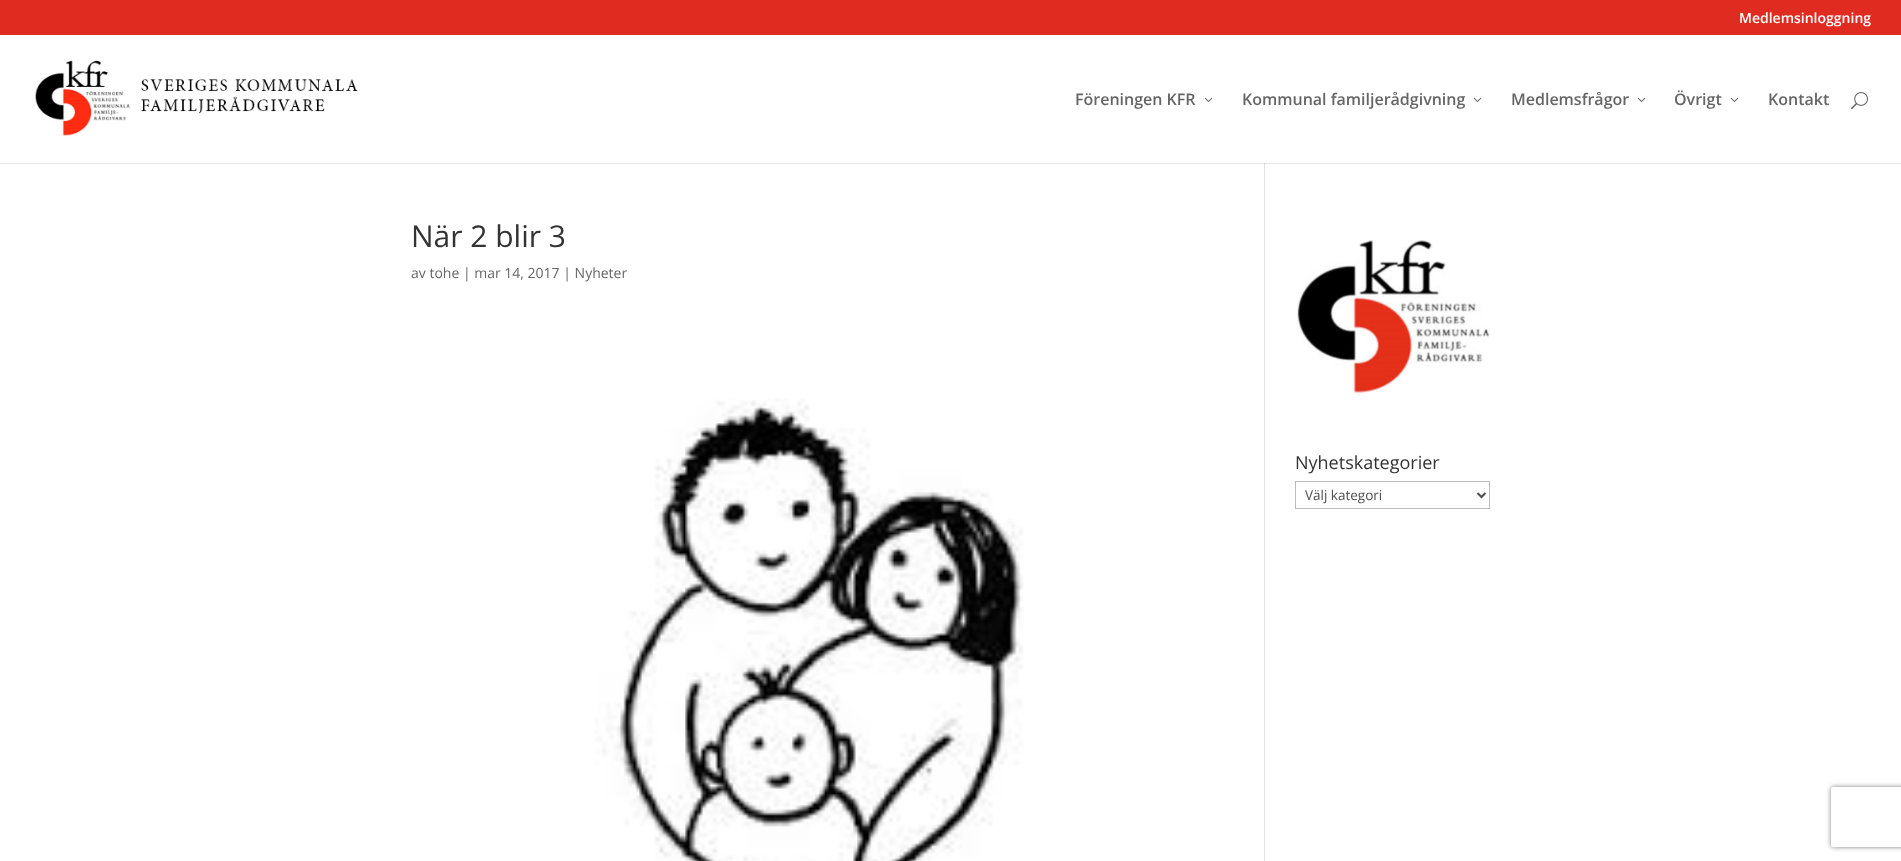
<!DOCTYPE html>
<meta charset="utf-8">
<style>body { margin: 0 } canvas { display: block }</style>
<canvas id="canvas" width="1901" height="861"></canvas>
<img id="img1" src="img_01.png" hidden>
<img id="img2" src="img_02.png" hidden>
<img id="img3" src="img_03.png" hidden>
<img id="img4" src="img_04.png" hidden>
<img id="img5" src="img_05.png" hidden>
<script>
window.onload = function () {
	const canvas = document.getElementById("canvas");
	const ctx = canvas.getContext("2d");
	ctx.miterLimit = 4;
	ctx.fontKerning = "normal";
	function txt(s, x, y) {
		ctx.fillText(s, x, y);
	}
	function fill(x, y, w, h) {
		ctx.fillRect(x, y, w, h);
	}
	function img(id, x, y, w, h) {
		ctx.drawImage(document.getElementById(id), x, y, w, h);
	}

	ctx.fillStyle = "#FFFFFF";
	fill(0, 0, 1901, 861);
	ctx.fillStyle = "#E6E6E6";
	fill(0, 163, 1901, 1);
	ctx.fillStyle = "#E02B20";
	fill(0, 0, 1901, 35);
	img("img1", 35, 60, 323, 77);
	img("img2", 1204, 97, 9, 5);
	img("img2", 1473, 97, 9, 5);
	img("img2", 1637, 97, 9, 5);
	img("img2", 1730, 97, 9, 5);
	img("img3", 1851, 92, 17, 18);
	ctx.fillStyle = "#E2E2E2";
	fill(1264, 163, 1, 698);
	ctx.fillStyle = "#CBCBCB";
	fill(1264, 163, 1, 1);
	img("img4", 595, 398, 429, 463);
	img("img5", 1296, 240, 194, 160);
	ctx.strokeStyle = "#BBBBBB";
	ctx.strokeRect(1295.5, 481.5, 194, 27);
	ctx.beginPath();
	ctx.moveTo(1477.5, 493);
	ctx.lineTo(1481.5, 497);
	ctx.lineTo(1485.5, 493);
	ctx.strokeStyle = "#4E4E4E";
	ctx.lineWidth = 2;
	ctx.stroke();
	ctx.save();
	ctx.beginPath();
	ctx.moveTo(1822, 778);
	ctx.lineTo(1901, 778);
	ctx.lineTo(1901, 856);
	ctx.lineTo(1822, 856);
	ctx.closePath();
	ctx.moveTo(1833, 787);
	ctx.lineTo(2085, 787);
	ctx.bezierCurveTo(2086, 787, 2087, 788, 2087, 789);
	ctx.lineTo(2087, 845);
	ctx.bezierCurveTo(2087, 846, 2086, 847, 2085, 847);
	ctx.lineTo(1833, 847);
	ctx.bezierCurveTo(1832, 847, 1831, 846, 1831, 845);
	ctx.lineTo(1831, 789);
	ctx.bezierCurveTo(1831, 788, 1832, 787, 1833, 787);
	ctx.closePath();
	ctx.clip("evenodd");
	ctx.fillStyle = "#808080";
	ctx.filter = "blur(2.5px)";
	ctx.beginPath();
	ctx.roundRect(1831, 787, 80, 60, 2);
	ctx.fill();
	ctx.filter = "none";
	ctx.restore();
	ctx.font = "600 14px Open Sans";
	ctx.fillStyle = "#FFFFFF";
	txt("Medlemsinloggning", 1739, 23);
	ctx.font = "600 16px Open Sans";
	ctx.fillStyle = "#666666";
	txt("Föreningen KFR", 1075, 105);
	txt("Kommunal familjerådgivning", 1242, 105);
	txt("Medlemsfrågor", 1511, 105);
	txt("Övrigt", 1674, 105);
	txt("Kontakt", 1768, 105);
	ctx.font = "30px Open Sans";
	ctx.fillStyle = "#333333";
	txt("När 2 blir 3", 411, 247);
	ctx.font = "14px Open Sans";
	ctx.fillStyle = "#666666";
	txt("av tohe | mar 14, 2017 | Nyheter", 411, 278);
	ctx.font = "18px Open Sans";
	ctx.fillStyle = "#333333";
	txt("Nyhetskategorier", 1295, 469);
	ctx.font = "13.5px Open Sans";
	ctx.fillStyle = "#4E4E4E";
	txt("Välj kategori", 1305, 500);
};
</script>
